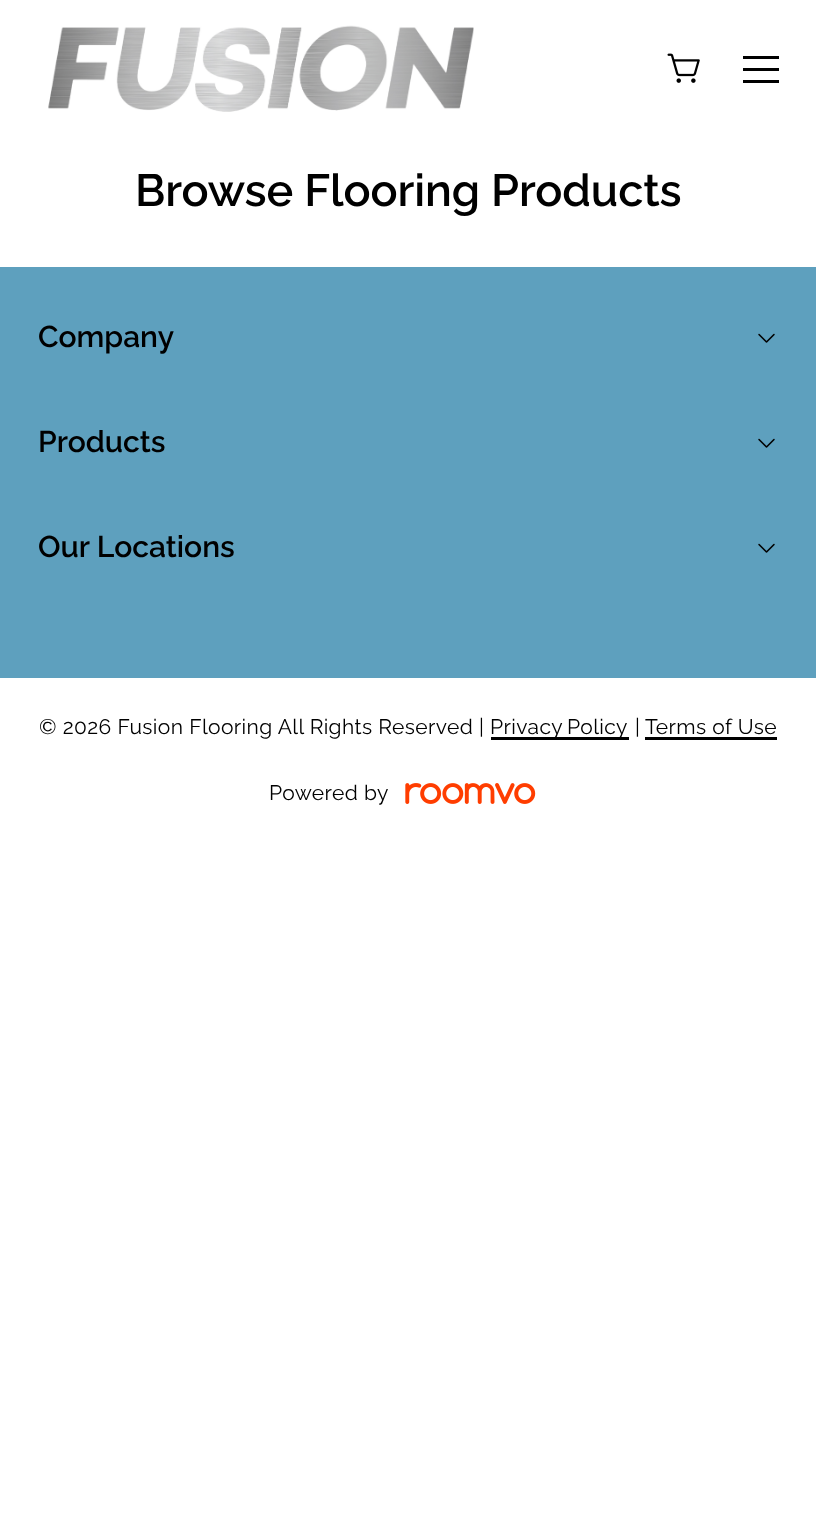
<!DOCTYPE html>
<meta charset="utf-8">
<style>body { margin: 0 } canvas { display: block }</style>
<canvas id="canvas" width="816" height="1520"></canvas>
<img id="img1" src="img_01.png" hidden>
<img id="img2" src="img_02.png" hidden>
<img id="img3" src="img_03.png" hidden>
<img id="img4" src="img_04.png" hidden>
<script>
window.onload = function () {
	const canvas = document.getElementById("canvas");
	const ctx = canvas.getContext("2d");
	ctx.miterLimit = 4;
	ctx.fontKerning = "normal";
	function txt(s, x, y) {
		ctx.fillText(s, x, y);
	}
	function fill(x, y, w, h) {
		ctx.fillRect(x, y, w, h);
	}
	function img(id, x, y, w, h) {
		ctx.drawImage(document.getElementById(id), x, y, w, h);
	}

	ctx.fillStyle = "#FFFFFF";
	fill(0, 0, 816, 1520);
	img("img1", 48, 25, 426, 87);
	img("img2", 667, 53, 33, 30);
	ctx.fillStyle = "#000000";
	fill(743, 68, 36, 3);
	fill(743, 56, 36, 3);
	fill(743, 80, 36, 3);
	ctx.fillStyle = "#5EA0BE";
	fill(0, 267, 816, 411);
	img("img3", 758, 333, 17, 10);
	img("img3", 758, 438, 17, 10);
	img("img3", 758, 543, 17, 10);
	ctx.fillStyle = "#000000";
	fill(491, 737, 138, 3);
	fill(645, 737, 132, 3);
	img("img4", 405, 783, 131, 21);
	ctx.letterSpacing = "-0.1px";
	ctx.font = "600 45px Raleway";
	txt("Browse Flooring Products", 135, 206);
	ctx.letterSpacing = "0px";
	ctx.font = "600 30px Raleway";
	txt("Company", 38, 347);
	txt("Products", 38, 452);
	txt("Our Locations", 38, 557);
	ctx.letterSpacing = "0.4px";
	ctx.font = "21px Raleway";
	txt("© 2026 Fusion Flooring All Rights Reserved |", 39, 734);
	ctx.wordSpacing = "-1px";
	txt("Privacy Policy", 490, 734);
	ctx.wordSpacing = "0px";
	txt("|", 635, 734);
	txt("Terms of Use", 645, 734);
	txt("Powered by", 269, 800);
};
</script>
